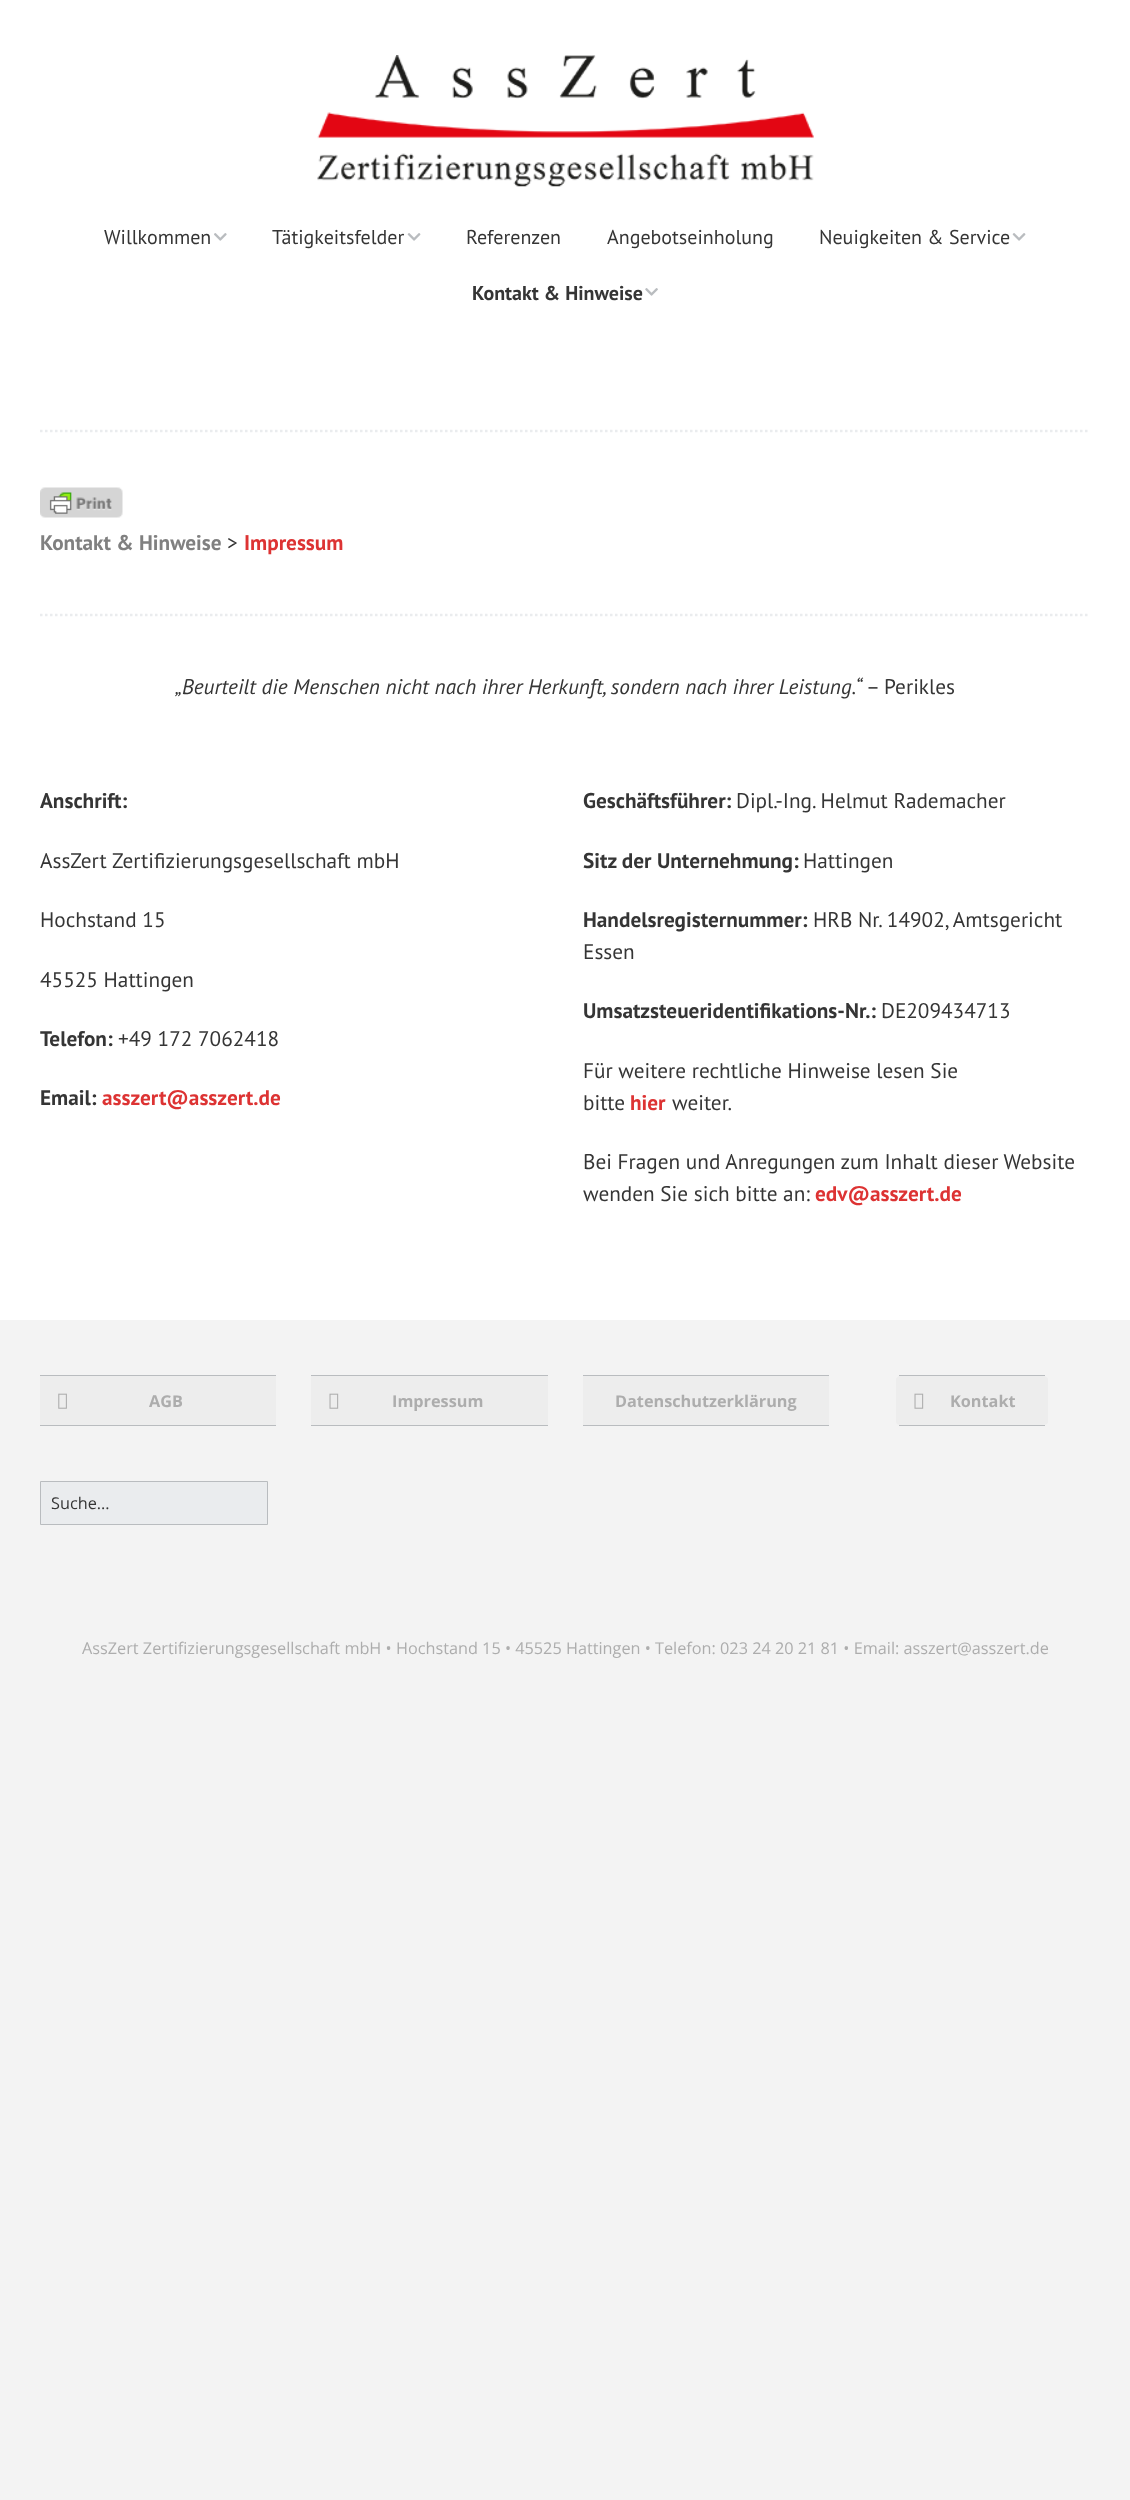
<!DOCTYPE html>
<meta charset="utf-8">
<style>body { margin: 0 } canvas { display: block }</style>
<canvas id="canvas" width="1130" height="2500"></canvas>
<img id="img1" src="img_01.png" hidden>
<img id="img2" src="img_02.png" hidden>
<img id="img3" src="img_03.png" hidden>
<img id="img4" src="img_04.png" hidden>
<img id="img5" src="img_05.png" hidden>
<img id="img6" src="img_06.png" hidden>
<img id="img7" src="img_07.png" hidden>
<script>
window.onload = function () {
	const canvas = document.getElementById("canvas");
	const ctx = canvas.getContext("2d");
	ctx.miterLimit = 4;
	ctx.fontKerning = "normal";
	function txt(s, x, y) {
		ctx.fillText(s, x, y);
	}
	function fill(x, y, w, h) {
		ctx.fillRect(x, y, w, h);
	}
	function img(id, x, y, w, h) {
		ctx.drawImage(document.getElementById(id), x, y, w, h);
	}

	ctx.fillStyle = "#F3F3F3";
	fill(0, 0, 1130, 2500);
	ctx.fillStyle = "#FFFFFF";
	fill(0, 0, 1130, 1320);
	img("img1", 317, 55, 497, 132);
	img("img2", 214, 233, 13, 8);
	img("img3", 407, 233, 14, 8);
	img("img3", 1012, 233, 14, 8);
	img("img4", 645, 288, 13, 8);
	ctx.beginPath();
	ctx.moveTo(40, 431);
	ctx.lineTo(1090, 431);
	ctx.strokeStyle = "#EAECEE";
	ctx.lineWidth = 2.5;
	ctx.setLineDash([2.5, 2.5]);
	ctx.stroke();
	img("img5", 40, 487, 83, 31);
	ctx.beginPath();
	ctx.moveTo(40, 615);
	ctx.lineTo(1090, 615);
	ctx.stroke();
	ctx.fillStyle = "#EDEDED";
	fill(40, 1376, 236, 49);
	ctx.fillStyle = "#B9BCBF";
	fill(40, 1375, 236, 1);
	fill(40, 1425, 236, 1);
	img("img6", 58, 1393, 9, 16);
	ctx.fillStyle = "#EAECEE";
	ctx.beginPath();
	ctx.rect(40.5, 1481.5, 227, 43);
	ctx.fill();
	ctx.strokeStyle = "#B9BCBF";
	ctx.lineWidth = 1;
	ctx.setLineDash([]);
	ctx.stroke();
	ctx.fillStyle = "#EDEDED";
	fill(311, 1376, 237, 49);
	ctx.fillStyle = "#B9BCBF";
	fill(311, 1375, 237, 1);
	fill(311, 1425, 237, 1);
	img("img7", 329, 1393, 10, 16);
	ctx.fillStyle = "#EDEDED";
	fill(583, 1376, 246, 49);
	ctx.fillStyle = "#B9BCBF";
	fill(583, 1375, 246, 1);
	fill(583, 1425, 246, 1);
	ctx.fillStyle = "#EDEDED";
	ctx.beginPath();
	ctx.moveTo(900, 1376);
	ctx.lineTo(1043, 1376);
	ctx.bezierCurveTo(1046, 1376, 1048, 1378, 1048, 1379);
	ctx.lineTo(1048, 1422);
	ctx.bezierCurveTo(1048, 1424, 1046, 1425, 1043, 1425);
	ctx.lineTo(900, 1425);
	ctx.bezierCurveTo(898, 1425, 896, 1424, 896, 1422);
	ctx.lineTo(896, 1379);
	ctx.bezierCurveTo(896, 1378, 898, 1376, 900, 1376);
	ctx.closePath();
	ctx.fill();
	ctx.fillStyle = "#B9BCBF";
	fill(899, 1375, 146, 1);
	fill(899, 1425, 146, 1);
	img("img7", 914, 1393, 10, 16);
	ctx.font = "20px PT Sans";
	ctx.fillStyle = "#353535";
	txt("Willkommen", 104, 244);
	txt("Tätigkeitsfelder", 272, 244);
	txt("Referenzen", 466, 244);
	txt("Angebotseinholung", 607, 244);
	txt("Neuigkeiten & Service", 819, 244);
	ctx.font = "bold 20px PT Sans";
	txt("Kontakt & Hinweise", 472, 300);
	ctx.font = "bold 21.25px PT Sans";
	ctx.fillStyle = "#808080";
	txt("Kontakt & Hinweise", 40, 550);
	ctx.font = "21.25px PT Sans";
	ctx.fillStyle = "#353535";
	txt(">", 227, 550);
	ctx.font = "bold 21.25px PT Sans";
	ctx.fillStyle = "#DD3333";
	txt("Impressum", 244, 550);
	ctx.font = "italic 21.25px PT Sans";
	ctx.fillStyle = "#353535";
	txt("„Beurteilt die Menschen nicht nach ihrer Herkunft, sondern nach ihrer Leistung.“", 175, 694);
	ctx.font = "21.25px PT Sans";
	txt("– Perikles", 866, 694);
	ctx.font = "bold 21.25px PT Sans";
	txt("Anschrift:", 40, 808);
	ctx.font = "21.25px PT Sans";
	txt("AssZert Zertifizierungsgesellschaft mbH", 40, 868);
	txt("Hochstand 15", 40, 927);
	txt("45525 Hattingen", 40, 987);
	ctx.font = "bold 21.25px PT Sans";
	txt("Telefon:", 40, 1046);
	ctx.font = "21.25px PT Sans";
	txt("+49 172 7062418", 118, 1046);
	ctx.font = "bold 21.25px PT Sans";
	txt("Email:", 40, 1105);
	ctx.fillStyle = "#DD3333";
	txt("asszert@asszert.de", 102, 1105);
	ctx.fillStyle = "#353535";
	txt("Geschäftsführer:", 583, 808);
	ctx.font = "21.25px PT Sans";
	txt("Dipl.-Ing. Helmut Rademacher", 736, 808);
	ctx.font = "bold 21.25px PT Sans";
	txt("Sitz der Unternehmung:", 583, 868);
	ctx.font = "21.25px PT Sans";
	txt("Hattingen", 803, 868);
	ctx.font = "bold 21.25px PT Sans";
	txt("Handelsregisternummer:", 583, 927);
	ctx.font = "21.25px PT Sans";
	txt("HRB Nr. 14902, Amtsgericht", 813, 927);
	txt("Essen", 583, 959);
	ctx.font = "bold 21.25px PT Sans";
	txt("Umsatzsteueridentifikations-Nr.:", 583, 1018);
	ctx.font = "21.25px PT Sans";
	txt("DE209434713", 881, 1018);
	txt("Für weitere rechtliche Hinweise lesen Sie", 583, 1078);
	txt("bitte", 583, 1110);
	ctx.font = "bold 21.25px PT Sans";
	ctx.fillStyle = "#DD3333";
	txt("hier", 630, 1110);
	ctx.font = "21.25px PT Sans";
	ctx.fillStyle = "#353535";
	txt("weiter.", 672, 1110);
	txt("Bei Fragen und Anregungen zum Inhalt dieser Website", 583, 1169);
	txt("wenden Sie sich bitte an:", 583, 1201);
	ctx.font = "bold 21.25px PT Sans";
	ctx.fillStyle = "#DD3333";
	txt("edv@asszert.de", 815, 1201);
	ctx.font = "bold 16.25px Open Sans";
	ctx.fillStyle = "#ADADAD";
	txt("AGB", 149, 1407);
	ctx.font = "16.25px Open Sans";
	ctx.fillStyle = "#353535";
	txt("Suche...", 51, 1509);
	ctx.font = "bold 16.25px Open Sans";
	ctx.fillStyle = "#ADADAD";
	txt("Impressum", 392, 1407);
	txt("Datenschutzerklärung", 615, 1407);
	txt("Kontakt", 950, 1407);
	ctx.font = "16.25px Open Sans";
	txt("AssZert Zertifizierungsgesellschaft mbH • Hochstand 15 • 45525 Hattingen • Telefon: 023 24 20 21 81 • Email: asszert@asszert.de", 82, 1654);
};
</script>
